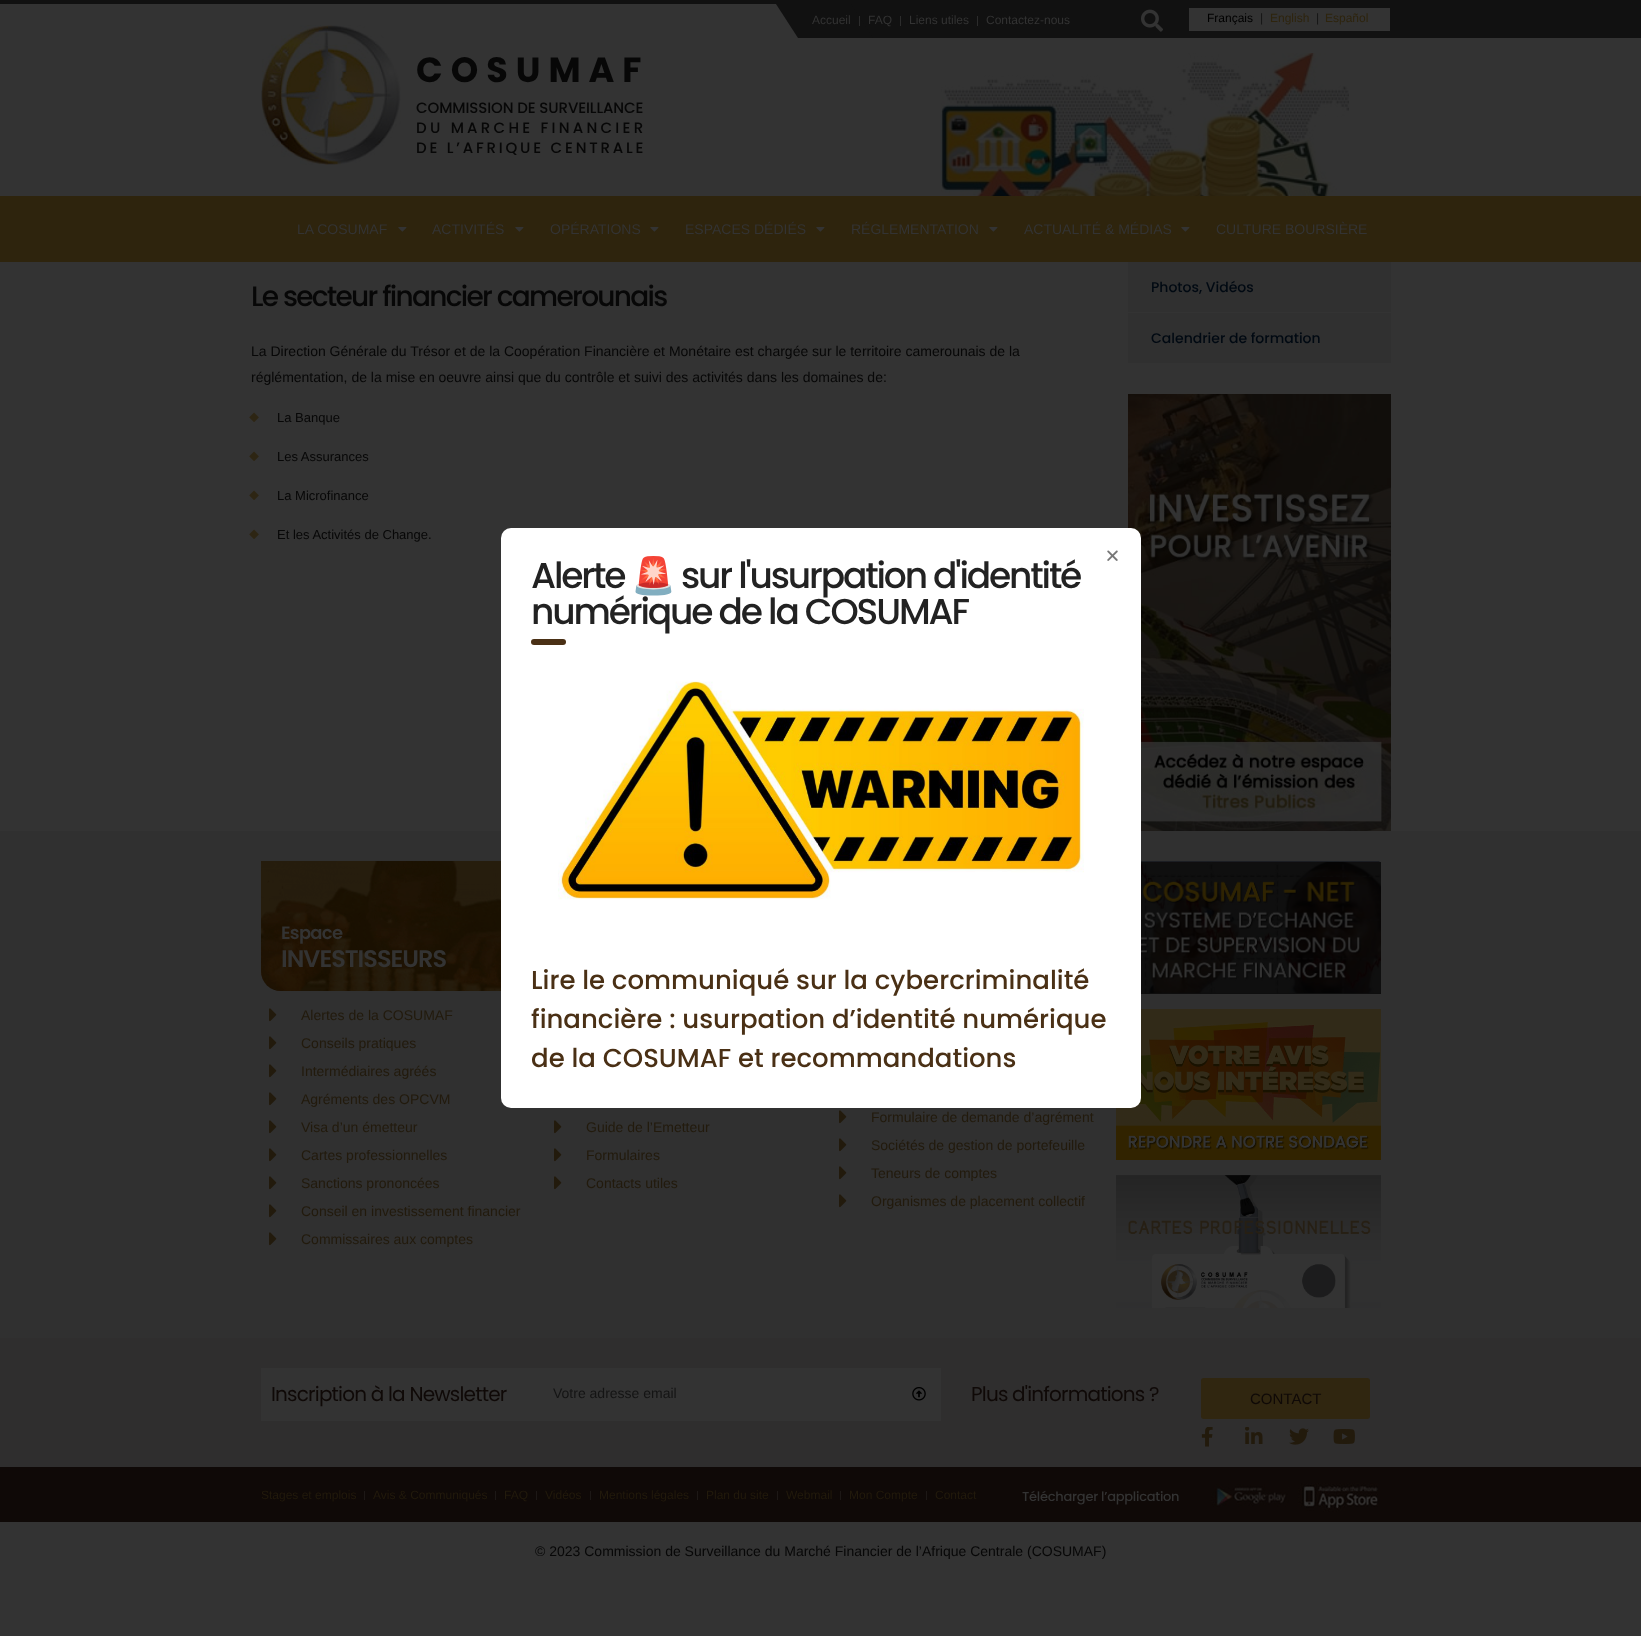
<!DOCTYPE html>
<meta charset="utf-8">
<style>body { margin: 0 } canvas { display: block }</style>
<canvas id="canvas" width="1641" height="1636"></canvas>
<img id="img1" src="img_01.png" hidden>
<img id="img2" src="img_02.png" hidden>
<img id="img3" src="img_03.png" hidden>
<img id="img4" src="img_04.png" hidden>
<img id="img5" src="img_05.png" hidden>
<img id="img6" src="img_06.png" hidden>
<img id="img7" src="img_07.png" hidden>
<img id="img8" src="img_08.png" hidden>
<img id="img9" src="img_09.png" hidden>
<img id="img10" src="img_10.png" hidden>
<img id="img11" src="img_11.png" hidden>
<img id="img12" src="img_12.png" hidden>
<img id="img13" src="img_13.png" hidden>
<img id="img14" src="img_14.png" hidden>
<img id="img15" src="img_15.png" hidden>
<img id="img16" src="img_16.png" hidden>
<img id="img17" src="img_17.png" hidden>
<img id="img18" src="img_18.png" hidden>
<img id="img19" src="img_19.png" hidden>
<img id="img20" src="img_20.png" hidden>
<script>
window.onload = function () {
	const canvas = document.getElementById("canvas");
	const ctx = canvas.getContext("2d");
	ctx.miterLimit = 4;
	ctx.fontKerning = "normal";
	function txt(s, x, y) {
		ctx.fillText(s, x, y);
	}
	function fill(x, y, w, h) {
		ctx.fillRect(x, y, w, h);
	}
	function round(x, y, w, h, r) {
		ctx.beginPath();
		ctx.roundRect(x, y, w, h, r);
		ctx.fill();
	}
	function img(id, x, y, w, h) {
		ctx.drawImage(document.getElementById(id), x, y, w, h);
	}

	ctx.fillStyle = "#333333";
	fill(0, 0, 1641, 1636);
	ctx.fillStyle = "#111111";
	fill(0, 0, 1641, 4);
	fill(851, 4, 790, 34);
	ctx.beginPath();
	ctx.moveTo(776, 4);
	ctx.lineTo(851, 4);
	ctx.lineTo(873, 38);
	ctx.lineTo(798, 38);
	ctx.closePath();
	ctx.fill();
	ctx.fillStyle = "#2C2C2C";
	fill(859, 16, 1, 10);
	fill(900, 16, 1, 10);
	fill(977, 16, 1, 10);
	img("img1", 1140, 9, 23, 23);
	ctx.fillStyle = "#333333";
	fill(1189, 8, 201, 23);
	img("img2", 261, 25, 140, 140);
	img("img3", 940, 53, 409, 143);
	ctx.fillStyle = "#2E240D";
	fill(0, 196, 1641, 66);
	img("img4", 398, 227, 9, 5);
	img("img4", 515, 227, 9, 5);
	img("img4", 650, 227, 9, 5);
	img("img4", 816, 227, 9, 5);
	img("img4", 989, 227, 9, 5);
	img("img4", 1181, 227, 9, 5);
	img("img5", 249, 412, 10, 10);
	img("img5", 249, 451, 10, 10);
	img("img5", 249, 490, 10, 10);
	img("img5", 249, 529, 10, 10);
	ctx.fillStyle = "#303030";
	fill(1128, 262, 263, 50);
	fill(1128, 313, 263, 50);
	img("img6", 1128, 394, 263, 437);
	fill(0, 831, 1641, 507);
	img("img7", 261, 861, 240, 130);
	ctx.fillStyle = "rgba(32, 21, 0, 0.35)";
	ctx.beginPath();
	ctx.roundRect(261, 861, 265, 130, [0, 20, 0, 20]);
	ctx.fill();
	img("img8", 269, 1008, 8, 14);
	img("img8", 269, 1036, 8, 14);
	img("img8", 269, 1064, 8, 14);
	img("img8", 269, 1092, 8, 14);
	img("img8", 269, 1120, 8, 14);
	img("img8", 269, 1148, 8, 14);
	img("img8", 269, 1176, 8, 14);
	img("img8", 269, 1204, 8, 14);
	img("img8", 269, 1232, 8, 14);
	img("img8", 554, 1120, 8, 14);
	img("img8", 554, 1148, 8, 14);
	img("img8", 554, 1176, 8, 14);
	img("img8", 839, 1110, 8, 14);
	img("img8", 839, 1138, 8, 14);
	img("img8", 839, 1166, 8, 14);
	img("img8", 839, 1194, 8, 14);
	img("img9", 1141, 861, 240, 133);
	img("img10", 1116, 1009, 265, 151);
	img("img11", 1116, 1175, 265, 133);
	ctx.fillStyle = "#2F2E2E";
	fill(0, 1338, 1641, 129);
	ctx.fillStyle = "#333333";
	fill(261, 1368, 680, 53);
	img("img12", 912, 1387, 14, 14);
	ctx.fillStyle = "#302610";
	round(1201, 1378, 169, 41, 3);
	img("img13", 1201, 1427, 12, 20);
	img("img14", 1245, 1427, 18, 17);
	img("img15", 1289, 1428, 20, 17);
	img("img16", 1333, 1429, 22, 15);
	ctx.fillStyle = "#0F0907";
	fill(0, 1467, 1641, 55);
	ctx.fillStyle = "#1D1816";
	fill(364, 1491, 1, 9);
	fill(495, 1491, 1, 9);
	fill(536, 1491, 1, 9);
	fill(590, 1491, 1, 9);
	fill(697, 1491, 1, 9);
	fill(777, 1491, 1, 9);
	fill(840, 1491, 1, 9);
	fill(926, 1491, 1, 9);
	img("img17", 1211, 1484, 78, 23);
	img("img18", 1298, 1483, 82, 31);
	ctx.fillStyle = "#FFFFFF";
	round(501, 528, 640, 580, 10);
	ctx.fillStyle = "#4A3015";
	round(531, 639, 35, 6, 3);
	img("img19", 558, 681, 526, 219);
	img("img20", 1107, 550, 11, 11);
	ctx.font = "12px Liberation Sans";
	ctx.fillStyle = "#333333";
	txt("Accueil", 812, 24);
	txt("FAQ", 868, 24);
	txt("Liens utiles", 909, 24);
	txt("Contactez-nous", 986, 24);
	ctx.fillStyle = "#000000";
	txt("Français", 1207, 22);
	ctx.fillStyle = "#141414";
	txt("|", 1260, 22);
	ctx.fillStyle = "#2E240D";
	txt("English", 1270, 22);
	ctx.fillStyle = "#141414";
	txt("|", 1316, 22);
	ctx.fillStyle = "#2E240D";
	txt("Español", 1325, 22);
	ctx.letterSpacing = "8px";
	ctx.font = "bold 35px Poppins";
	ctx.fillStyle = "#070707";
	txt("COSUMAF", 416, 82);
	ctx.letterSpacing = "-0.1px";
	ctx.font = "500 15px Poppins";
	txt("COMMISSION DE SURVEILLANCE", 416, 113);
	ctx.letterSpacing = "3.25px";
	txt("DU MARCHE FINANCIER", 416, 133);
	ctx.letterSpacing = "2.8px";
	txt("DE L’AFRIQUE CENTRALE", 416, 153);
	ctx.letterSpacing = "0px";
	ctx.font = "14px Liberation Sans";
	ctx.fillStyle = "#333333";
	txt("LA COSUMAF", 297, 234);
	txt("ACTIVITÉS", 432, 234);
	txt("OPÉRATIONS", 550, 234);
	txt("ESPACES DÉDIÉS", 685, 234);
	txt("RÉGLEMENTATION", 851, 234);
	txt("ACTUALITÉ & MÉDIAS", 1024, 234);
	txt("CULTURE BOURSIÈRE", 1216, 234);
	ctx.letterSpacing = "-1.7px";
	ctx.font = "500 28px Poppins";
	ctx.fillStyle = "#070707";
	txt("Le secteur financier camerounais", 251, 306);
	ctx.letterSpacing = "0px";
	ctx.font = "14px Liberation Sans";
	txt("La Direction Générale du Trésor et de la Coopération Financière et Monétaire est chargée sur le territoire camerounais de la", 251, 356);
	txt("réglémentation, de la mise en oeuvre ainsi que du contrôle et suivi des activités dans les domaines de:", 251, 382);
	ctx.font = "13px Liberation Sans";
	txt("La Banque", 277, 422);
	txt("Les Assurances", 277, 461);
	txt("La Microfinance", 277, 500);
	txt("Et les Activités de Change.", 277, 539);
	ctx.font = "500 14px Poppins";
	ctx.fillStyle = "#000912";
	txt("Photos, Vidéos", 1151, 292);
	txt("Calendrier de formation", 1151, 343);
	ctx.letterSpacing = "-0.75px";
	ctx.font = "600 18px Poppins";
	ctx.fillStyle = "#333333";
	txt("Espace", 281, 939);
	ctx.letterSpacing = "-1px";
	ctx.font = "600 24px Poppins";
	txt("INVESTISSEURS", 281, 967);
	ctx.letterSpacing = "0px";
	ctx.font = "14px Liberation Sans";
	ctx.fillStyle = "#221A0C";
	txt("Alertes de la COSUMAF", 301, 1020);
	txt("Conseils pratiques", 301, 1048);
	txt("Intermédiaires agréés", 301, 1076);
	txt("Agréments des OPCVM", 301, 1104);
	txt("Visa d’un émetteur", 301, 1132);
	txt("Cartes professionnelles", 301, 1160);
	txt("Sanctions prononcées", 301, 1188);
	txt("Conseil en investissement financier", 301, 1216);
	txt("Commissaires aux comptes", 301, 1244);
	txt("Guide de l’Emetteur", 586, 1132);
	txt("Formulaires", 586, 1160);
	txt("Contacts utiles", 586, 1188);
	txt("Formulaire de demande d’agrément", 871, 1122);
	txt("Sociétés de gestion de portefeuille", 871, 1150);
	txt("Teneurs de comptes", 871, 1178);
	txt("Organismes de placement collectif", 871, 1206);
	ctx.letterSpacing = "-0.8px";
	ctx.font = "20px Poppins";
	ctx.fillStyle = "#0F0907";
	txt("Inscription à la Newsletter", 271, 1401);
	ctx.letterSpacing = "0px";
	ctx.font = "14px Liberation Sans";
	ctx.fillStyle = "#141414";
	txt("Votre adresse email", 553, 1398);
	ctx.letterSpacing = "-0.8px";
	ctx.font = "20px Poppins";
	ctx.fillStyle = "#0F0907";
	txt("Plus d'informations ?", 971, 1401);
	ctx.letterSpacing = "0px";
	ctx.font = "15px Liberation Sans";
	txt("CONTACT", 1250, 1404);
	ctx.font = "12px Liberation Sans";
	ctx.fillStyle = "#221A0C";
	txt("Stages et emplois", 261, 1499);
	txt("Avis & Communiqués", 373, 1499);
	txt("FAQ", 504, 1499);
	txt("Vidéos", 545, 1499);
	txt("Mentions légales", 599, 1499);
	txt("Plan du site", 706, 1499);
	txt("Webmail", 786, 1499);
	txt("Mon Compte", 849, 1499);
	txt("Contact", 935, 1499);
	ctx.letterSpacing = "-0.25px";
	ctx.font = "500 13px Poppins";
	ctx.fillStyle = "#333333";
	txt("Télécharger l’application", 1022, 1501);
	ctx.letterSpacing = "0px";
	ctx.font = "14px Liberation Sans";
	ctx.fillStyle = "#070707";
	txt("© 2023 Commission de Surveillance du Marché Financier de l’Afrique Centrale (COSUMAF)", 535, 1556);
	ctx.letterSpacing = "-2.15px";
	ctx.font = "500 36px Poppins";
	ctx.fillStyle = "#222222";
	txt("Alerte", 531, 588);
	ctx.font = "36px Noto Color Emoji";
	txt("🚨", 631, 588);
	ctx.font = "500 36px Poppins";
	txt("sur l'usurpation d'identité", 681, 588);
	txt("numérique de la COSUMAF", 531, 624);
	ctx.letterSpacing = "0px";
	ctx.font = "500 26px Poppins";
	ctx.fillStyle = "#4A3015";
	txt("Lire le communiqué sur la cybercriminalité", 531, 989);
	txt("financière : usurpation d’identité numérique", 531, 1028);
	txt("de la COSUMAF et recommandations", 531, 1067);
};
</script>
